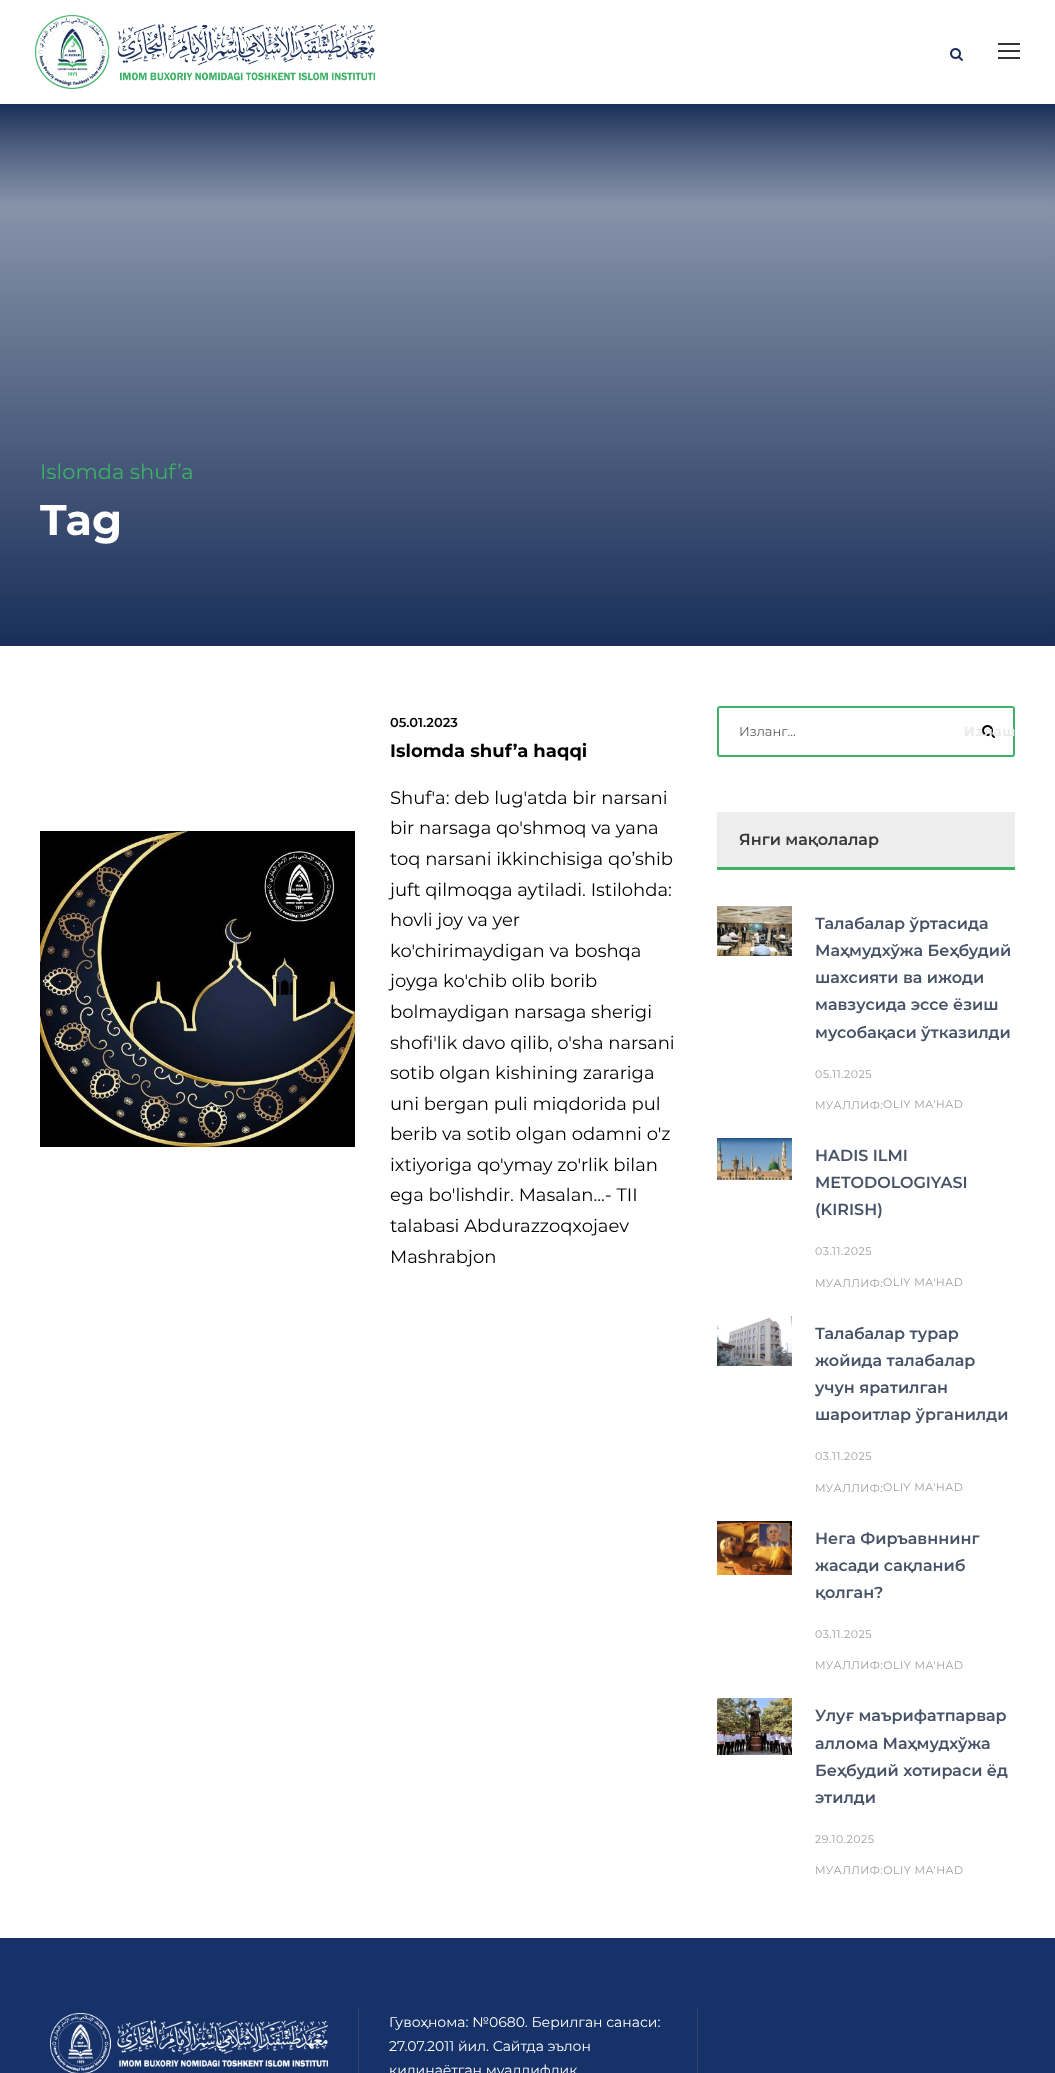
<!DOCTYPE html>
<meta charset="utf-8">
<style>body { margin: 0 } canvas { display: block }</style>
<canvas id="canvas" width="1055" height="2073"></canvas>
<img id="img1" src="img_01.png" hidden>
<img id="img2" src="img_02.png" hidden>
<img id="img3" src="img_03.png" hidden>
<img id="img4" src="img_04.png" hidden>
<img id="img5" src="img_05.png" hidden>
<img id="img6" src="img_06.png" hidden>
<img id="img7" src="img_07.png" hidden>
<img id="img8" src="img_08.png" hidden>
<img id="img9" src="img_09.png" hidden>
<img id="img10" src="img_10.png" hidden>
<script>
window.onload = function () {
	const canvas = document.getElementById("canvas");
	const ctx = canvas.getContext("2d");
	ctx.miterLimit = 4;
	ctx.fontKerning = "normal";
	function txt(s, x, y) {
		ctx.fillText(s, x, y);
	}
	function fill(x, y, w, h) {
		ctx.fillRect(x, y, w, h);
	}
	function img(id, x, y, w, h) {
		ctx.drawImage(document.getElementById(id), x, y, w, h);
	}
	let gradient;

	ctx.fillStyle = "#FFFFFF";
	fill(0, 0, 1055, 2073);
	img("img1", 35, 15, 340, 74);
	img("img2", 950, 48, 13, 13);
	ctx.fillStyle = "#333333";
	fill(998, 43, 22, 2);
	fill(998, 50, 22, 2);
	fill(998, 57, 22, 2);
	gradient = ctx.createLinearGradient(528, 206, 528, 104);
	gradient.addColorStop(0, "#FFFFFF");
	gradient.addColorStop(1, "#192F59");
	ctx.fillStyle = gradient;
	fill(0, 104, 1055, 101);
	gradient = ctx.createLinearGradient(528, -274, 528, 646);
	gradient.addColorStop(0, "rgba(25, 47, 89, 0)");
	gradient.addColorStop(1, "#192F59");
	ctx.fillStyle = gradient;
	fill(0, 106, 1055, 540);
	img("img3", 40, 831, 315, 316);
	ctx.beginPath();
	ctx.roundRect(718, 707, 296, 49, 2);
	ctx.strokeStyle = "#3DB166";
	ctx.lineWidth = 2;
	ctx.stroke();
	img("img4", 982, 725, 13, 13);
	ctx.fillStyle = "#EDEDED";
	fill(717, 812, 298, 55);
	ctx.fillStyle = "#3DB166";
	fill(717, 867, 298, 3);
	img("img5", 717, 906, 75, 50);
	img("img6", 717, 1138, 75, 42);
	img("img7", 717, 1316, 75, 50);
	img("img8", 717, 1521, 75, 54);
	img("img9", 717, 1698, 75, 57);
	ctx.fillStyle = "#163269";
	fill(0, 1938, 1055, 135);
	img("img10", 50, 2013, 278, 60);
	ctx.fillStyle = "#344568";
	fill(358, 2008, 1, 65);
	fill(697, 2008, 1, 65);
	ctx.font = "21px Montserrat";
	ctx.fillStyle = "#3DB166";
	txt("Islomda shuf’a", 40, 479);
	ctx.font = "bold 43px Montserrat";
	ctx.fillStyle = "#FFFFFF";
	txt("Tag", 40, 535);
	ctx.font = "600 13px Montserrat";
	ctx.fillStyle = "#000000";
	txt("05.01.2023", 390, 727);
	ctx.font = "bold 18px Montserrat";
	txt("Islomda shuf’a haqqi", 390, 757);
	ctx.font = "18px Montserrat";
	txt("Shuf'a: deb lug'atda bir narsani", 390, 804);
	txt("bir narsaga qo'shmoq va yana", 390, 834);
	txt("toq narsani ikkinchisiga qo’shib", 390, 865);
	txt("juft qilmoqga aytiladi. Istilohda:", 390, 896);
	txt("hovli joy va yer", 390, 926);
	txt("ko'chirimaydigan va boshqa", 390, 957);
	txt("joyga ko'chib olib borib", 390, 987);
	txt("bolmaydigan narsaga sherigi", 390, 1018);
	txt("shofi'lik davo qilib, o'sha narsani", 390, 1049);
	txt("sotib olgan kishining zarariga", 390, 1079);
	txt("uni bergan puli miqdorida pul", 390, 1110);
	txt("berib va sotib olgan odamni o'z", 390, 1140);
	txt("ixtiyoriga qo'ymay zo'rlik bilan", 390, 1171);
	txt("ega bo'lishdir. Masalan...- TII", 390, 1201);
	txt("talabasi Abdurazzoqxojaev", 390, 1232);
	txt("Mashrabjon", 390, 1263);
	ctx.font = "13px Montserrat";
	ctx.fillStyle = "#5E5E5E";
	txt("Изланг...", 739, 736);
	ctx.letterSpacing = "1px";
	ctx.font = "bold 13px Montserrat";
	ctx.fillStyle = "#E8EBE9";
	txt("Излаш", 964, 736);
	ctx.letterSpacing = "0px";
	ctx.font = "600 16px Montserrat";
	ctx.fillStyle = "#383838";
	txt("Янги мақолалар", 739, 845);
	ctx.fillStyle = "#475267";
	txt("Талабалар ўртасида", 815, 929);
	txt("Маҳмудхўжа Беҳбудий", 815, 956);
	txt("шахсияти ва ижоди", 815, 983);
	txt("мавзусида эссе ёзиш", 815, 1010);
	txt("мусобақаси ўтказилди", 815, 1038);
	ctx.letterSpacing = "0.5px";
	ctx.font = "11px Montserrat";
	ctx.fillStyle = "#A0A0A0";
	txt("05.11.2025", 815, 1078);
	txt("МУАЛЛИФ:", 815, 1109);
	txt("OLIY MA'HAD", 883, 1108);
	ctx.letterSpacing = "0px";
	ctx.font = "600 16px Montserrat";
	ctx.fillStyle = "#475267";
	txt("HADIS ILMI", 815, 1161);
	txt("METODOLOGIYASI", 815, 1188);
	txt("(KIRISH)", 815, 1215);
	ctx.letterSpacing = "0.5px";
	ctx.font = "11px Montserrat";
	ctx.fillStyle = "#A0A0A0";
	txt("03.11.2025", 815, 1255);
	txt("МУАЛЛИФ:", 815, 1287);
	txt("OLIY MA'HAD", 883, 1286);
	ctx.letterSpacing = "0px";
	ctx.font = "600 16px Montserrat";
	ctx.fillStyle = "#475267";
	txt("Талабалар турар", 815, 1339);
	txt("жойида талабалар", 815, 1366);
	ctx.save();
	ctx.beginPath();
	ctx.rect(815, 1316, 200, 185);
	ctx.clip();
	txt("учун яратилган", 815, 1393);
	ctx.restore();
	txt("шароитлар ўрганилди", 815, 1420);
	ctx.letterSpacing = "0.5px";
	ctx.font = "11px Montserrat";
	ctx.fillStyle = "#A0A0A0";
	txt("03.11.2025", 815, 1460);
	txt("МУАЛЛИФ:", 815, 1492);
	txt("OLIY MA'HAD", 883, 1491);
	ctx.letterSpacing = "0px";
	ctx.font = "600 16px Montserrat";
	ctx.fillStyle = "#475267";
	txt("Нега Фиръавннинг", 815, 1544);
	txt("жасади сақланиб", 815, 1571);
	txt("қолган?", 815, 1598);
	ctx.letterSpacing = "0.5px";
	ctx.font = "11px Montserrat";
	ctx.fillStyle = "#A0A0A0";
	txt("03.11.2025", 815, 1638);
	txt("МУАЛЛИФ:OLIY MA'HAD", 815, 1669);
	ctx.letterSpacing = "0px";
	ctx.font = "600 16px Montserrat";
	ctx.fillStyle = "#475267";
	txt("Улуғ маърифатпарвар", 815, 1721);
	txt("аллома Маҳмудхўжа", 815, 1749);
	txt("Беҳбудий хотираси ёд", 815, 1776);
	txt("этилди", 815, 1803);
	ctx.letterSpacing = "0.5px";
	ctx.font = "11px Montserrat";
	ctx.fillStyle = "#A0A0A0";
	txt("29.10.2025", 815, 1843);
	txt("МУАЛЛИФ:OLIY MA'HAD", 815, 1874);
	ctx.letterSpacing = "0px";
	ctx.font = "14px Montserrat";
	ctx.fillStyle = "#FFFFFF";
	txt("Гувоҳнома: №0680. Берилган санаси:", 389, 2027);
	txt("27.07.2011 йил. Сайтда эълон", 389, 2051);
	txt("қилинаётган муаллифлик", 389, 2075);
};
</script>
